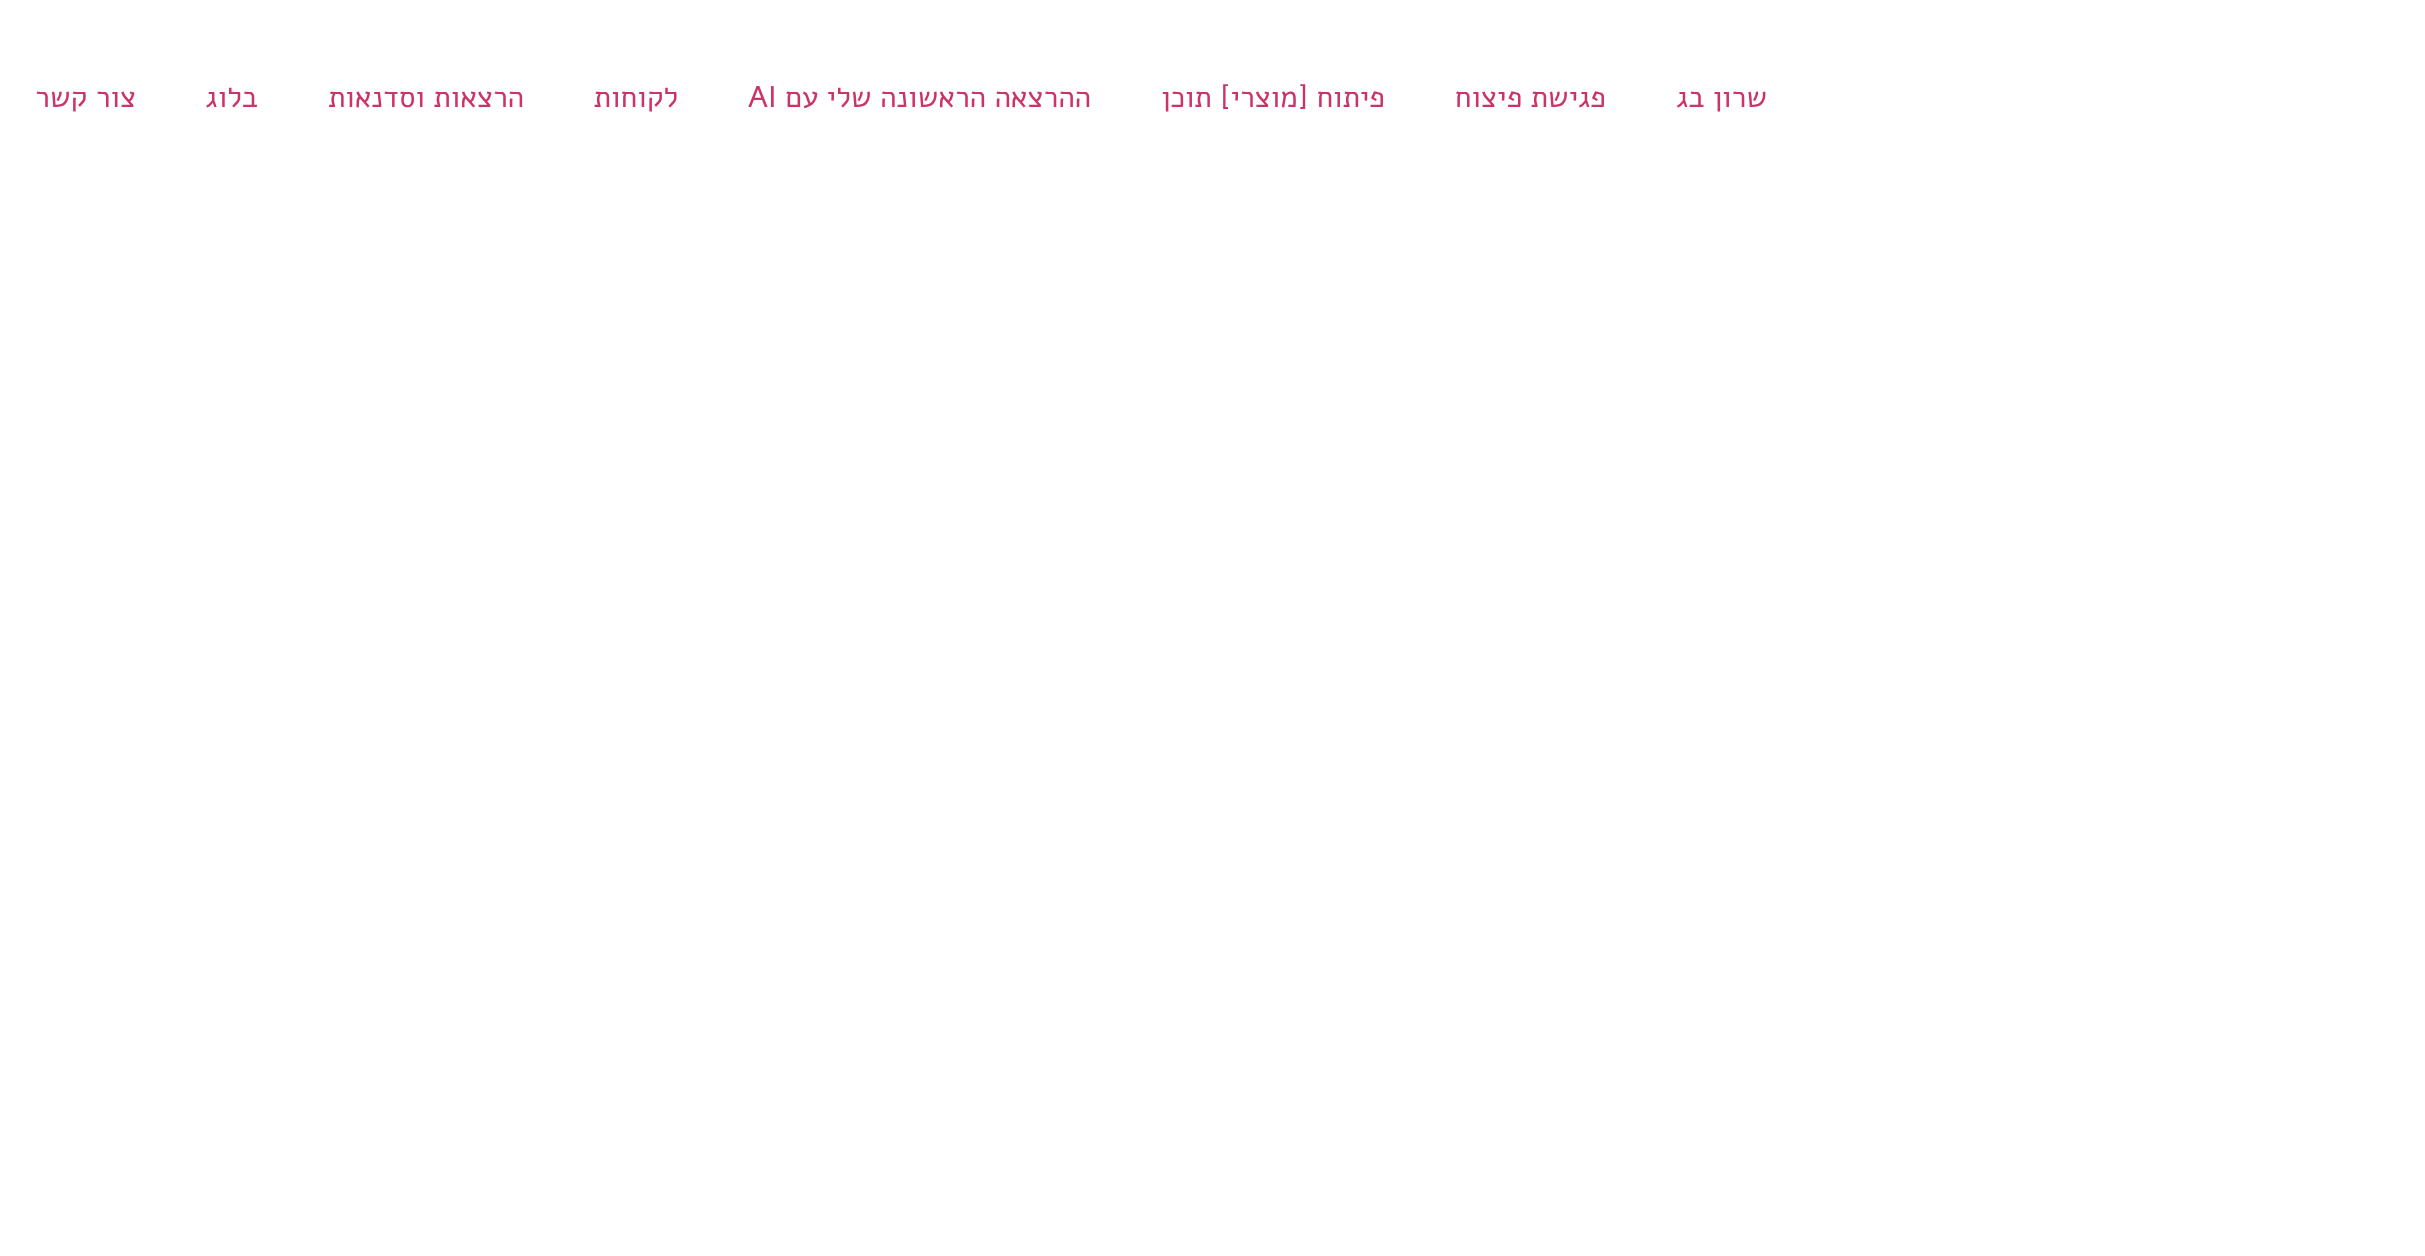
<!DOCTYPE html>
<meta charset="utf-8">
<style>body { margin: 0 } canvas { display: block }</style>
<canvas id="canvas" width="2425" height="1256"></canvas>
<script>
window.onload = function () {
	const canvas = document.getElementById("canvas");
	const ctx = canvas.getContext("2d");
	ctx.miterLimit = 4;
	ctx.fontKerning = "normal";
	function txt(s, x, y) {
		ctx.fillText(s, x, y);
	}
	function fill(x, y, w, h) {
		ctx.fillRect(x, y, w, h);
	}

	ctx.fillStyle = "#FFFFFF";
	fill(0, 0, 2425, 1256);
	ctx.direction = "rtl";
	ctx.font = "29.75px Alef";
	ctx.fillStyle = "#CC3366";
	txt("שרון בג", 1767, 107);
	txt("פגישת פיצוח", 1606, 107);
	txt("פיתוח [מוצרי] תוכן", 1385, 107);
	txt("ההרצאה הראשונה שלי עם", 1091, 107);
	ctx.direction = "ltr";
	txt("AI", 748, 107);
	ctx.direction = "rtl";
	txt("לקוחות", 678, 107);
	txt("הרצאות וסדנאות", 524, 107);
	txt("בלוג", 258, 107);
	txt("צור קשר", 136, 107);
};
</script>
